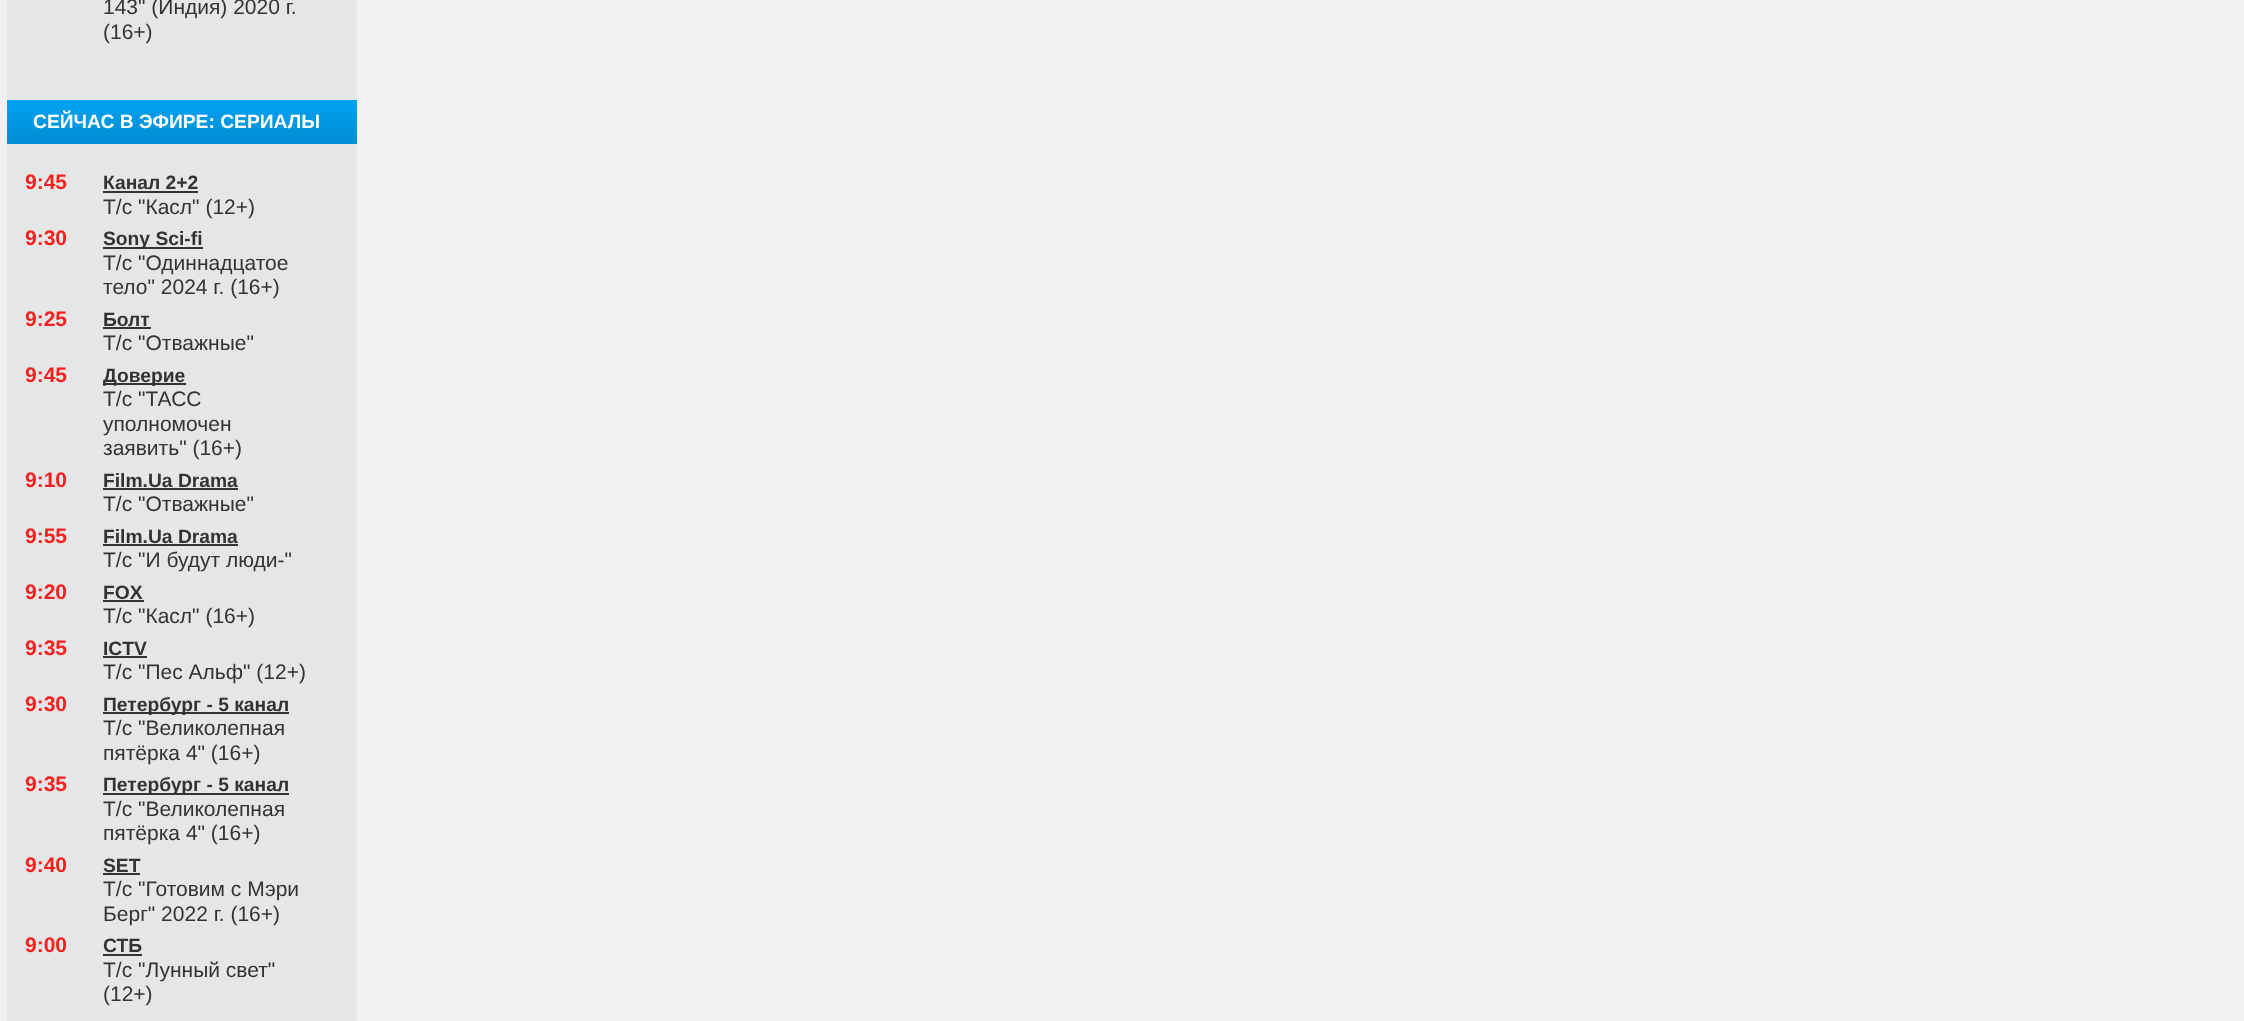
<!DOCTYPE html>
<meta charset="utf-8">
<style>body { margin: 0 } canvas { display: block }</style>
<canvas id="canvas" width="2244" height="1021"></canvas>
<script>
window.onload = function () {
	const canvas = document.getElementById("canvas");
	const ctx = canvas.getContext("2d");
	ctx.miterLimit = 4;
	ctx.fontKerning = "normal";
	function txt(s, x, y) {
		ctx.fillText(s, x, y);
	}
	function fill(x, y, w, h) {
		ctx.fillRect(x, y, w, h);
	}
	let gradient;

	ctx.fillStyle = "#F2F2F2";
	fill(0, 0, 2244, 1021);
	ctx.fillStyle = "#E5E6E6";
	fill(7, 0, 350, 1021);
	gradient = ctx.createLinearGradient(7, 100, 7, 144);
	gradient.addColorStop(0, "#00A3F3");
	gradient.addColorStop(1, "#008DD2");
	ctx.fillStyle = gradient;
	fill(7, 100, 350, 44);
	ctx.fillStyle = "#333333";
	fill(103, 191, 95, 2);
	fill(103, 247, 100, 2);
	fill(103, 327, 48, 2);
	fill(103, 383, 83, 2);
	fill(103, 488, 135, 2);
	fill(103, 544, 135, 2);
	fill(103, 600, 41, 2);
	fill(103, 656, 44, 2);
	fill(103, 712, 186, 2);
	fill(103, 793, 186, 2);
	fill(103, 873, 37, 2);
	fill(103, 954, 39, 2);
	ctx.font = "21px Liberation Sans";
	txt("143\" (Индия) 2020 г.", 103, 14);
	txt("(16+)", 103, 39);
	ctx.font = "bold 19.25px Liberation Sans";
	ctx.fillStyle = "#FFFFFF";
	txt("СЕЙЧАС В ЭФИРЕ: СЕРИАЛЫ", 33, 128);
	ctx.font = "bold 21px Liberation Sans";
	ctx.fillStyle = "#F81F1F";
	txt("9:45", 25, 189);
	ctx.font = "bold 19.25px Liberation Sans";
	ctx.fillStyle = "#333333";
	txt("Канал 2+2", 103, 189);
	ctx.font = "21px Liberation Sans";
	txt("Т/с \"Касл\" (12+)", 103, 214);
	ctx.font = "bold 21px Liberation Sans";
	ctx.fillStyle = "#F81F1F";
	txt("9:30", 25, 245);
	ctx.font = "bold 19.25px Liberation Sans";
	ctx.fillStyle = "#333333";
	txt("Sony Sci-fi", 103, 245);
	ctx.font = "21px Liberation Sans";
	txt("Т/с \"Одиннадцатое", 103, 270);
	txt("тело\" 2024 г. (16+)", 103, 294);
	ctx.font = "bold 21px Liberation Sans";
	ctx.fillStyle = "#F81F1F";
	txt("9:25", 25, 326);
	ctx.font = "bold 19.25px Liberation Sans";
	ctx.fillStyle = "#333333";
	txt("Болт", 103, 326);
	ctx.font = "21px Liberation Sans";
	txt("Т/с \"Отважные\"", 103, 350);
	ctx.font = "bold 21px Liberation Sans";
	ctx.fillStyle = "#F81F1F";
	txt("9:45", 25, 382);
	ctx.font = "bold 19.25px Liberation Sans";
	ctx.fillStyle = "#333333";
	txt("Доверие", 103, 382);
	ctx.font = "21px Liberation Sans";
	txt("Т/с \"ТАСС", 103, 406);
	txt("уполномочен", 103, 431);
	txt("заявить\" (16+)", 103, 455);
	ctx.font = "bold 21px Liberation Sans";
	ctx.fillStyle = "#F81F1F";
	txt("9:10", 25, 487);
	ctx.font = "bold 19.25px Liberation Sans";
	ctx.fillStyle = "#333333";
	txt("Film.Ua Drama", 103, 487);
	ctx.font = "21px Liberation Sans";
	txt("Т/с \"Отважные\"", 103, 511);
	ctx.font = "bold 21px Liberation Sans";
	ctx.fillStyle = "#F81F1F";
	txt("9:55", 25, 543);
	ctx.font = "bold 19.25px Liberation Sans";
	ctx.fillStyle = "#333333";
	txt("Film.Ua Drama", 103, 543);
	ctx.font = "21px Liberation Sans";
	txt("Т/с \"И будут люди-\"", 103, 567);
	ctx.font = "bold 21px Liberation Sans";
	ctx.fillStyle = "#F81F1F";
	txt("9:20", 25, 599);
	ctx.font = "bold 19.25px Liberation Sans";
	ctx.fillStyle = "#333333";
	txt("FOX", 103, 599);
	ctx.font = "21px Liberation Sans";
	txt("Т/с \"Касл\" (16+)", 103, 623);
	ctx.font = "bold 21px Liberation Sans";
	ctx.fillStyle = "#F81F1F";
	txt("9:35", 25, 655);
	ctx.font = "bold 19.25px Liberation Sans";
	ctx.fillStyle = "#333333";
	txt("ICTV", 103, 655);
	ctx.font = "21px Liberation Sans";
	txt("Т/с \"Пес Альф\" (12+)", 103, 679);
	ctx.font = "bold 21px Liberation Sans";
	ctx.fillStyle = "#F81F1F";
	txt("9:30", 25, 711);
	ctx.font = "bold 19.25px Liberation Sans";
	ctx.fillStyle = "#333333";
	txt("Петербург - 5 канал", 103, 711);
	ctx.font = "21px Liberation Sans";
	txt("Т/с \"Великолепная", 103, 735);
	txt("пятёрка 4\" (16+)", 103, 760);
	ctx.font = "bold 21px Liberation Sans";
	ctx.fillStyle = "#F81F1F";
	txt("9:35", 25, 791);
	ctx.font = "bold 19.25px Liberation Sans";
	ctx.fillStyle = "#333333";
	txt("Петербург - 5 канал", 103, 791);
	ctx.font = "21px Liberation Sans";
	txt("Т/с \"Великолепная", 103, 816);
	txt("пятёрка 4\" (16+)", 103, 840);
	ctx.font = "bold 21px Liberation Sans";
	ctx.fillStyle = "#F81F1F";
	txt("9:40", 25, 872);
	ctx.font = "bold 19.25px Liberation Sans";
	ctx.fillStyle = "#333333";
	txt("SET", 103, 872);
	ctx.font = "21px Liberation Sans";
	txt("Т/с \"Готовим с Мэри", 103, 896);
	txt("Берг\" 2022 г. (16+)", 103, 921);
	ctx.font = "bold 21px Liberation Sans";
	ctx.fillStyle = "#F81F1F";
	txt("9:00", 25, 952);
	ctx.font = "bold 19.25px Liberation Sans";
	ctx.fillStyle = "#333333";
	txt("СТБ", 103, 952);
	ctx.font = "21px Liberation Sans";
	txt("Т/с \"Лунный свет\"", 103, 977);
	txt("(12+)", 103, 1001);
};
</script>
